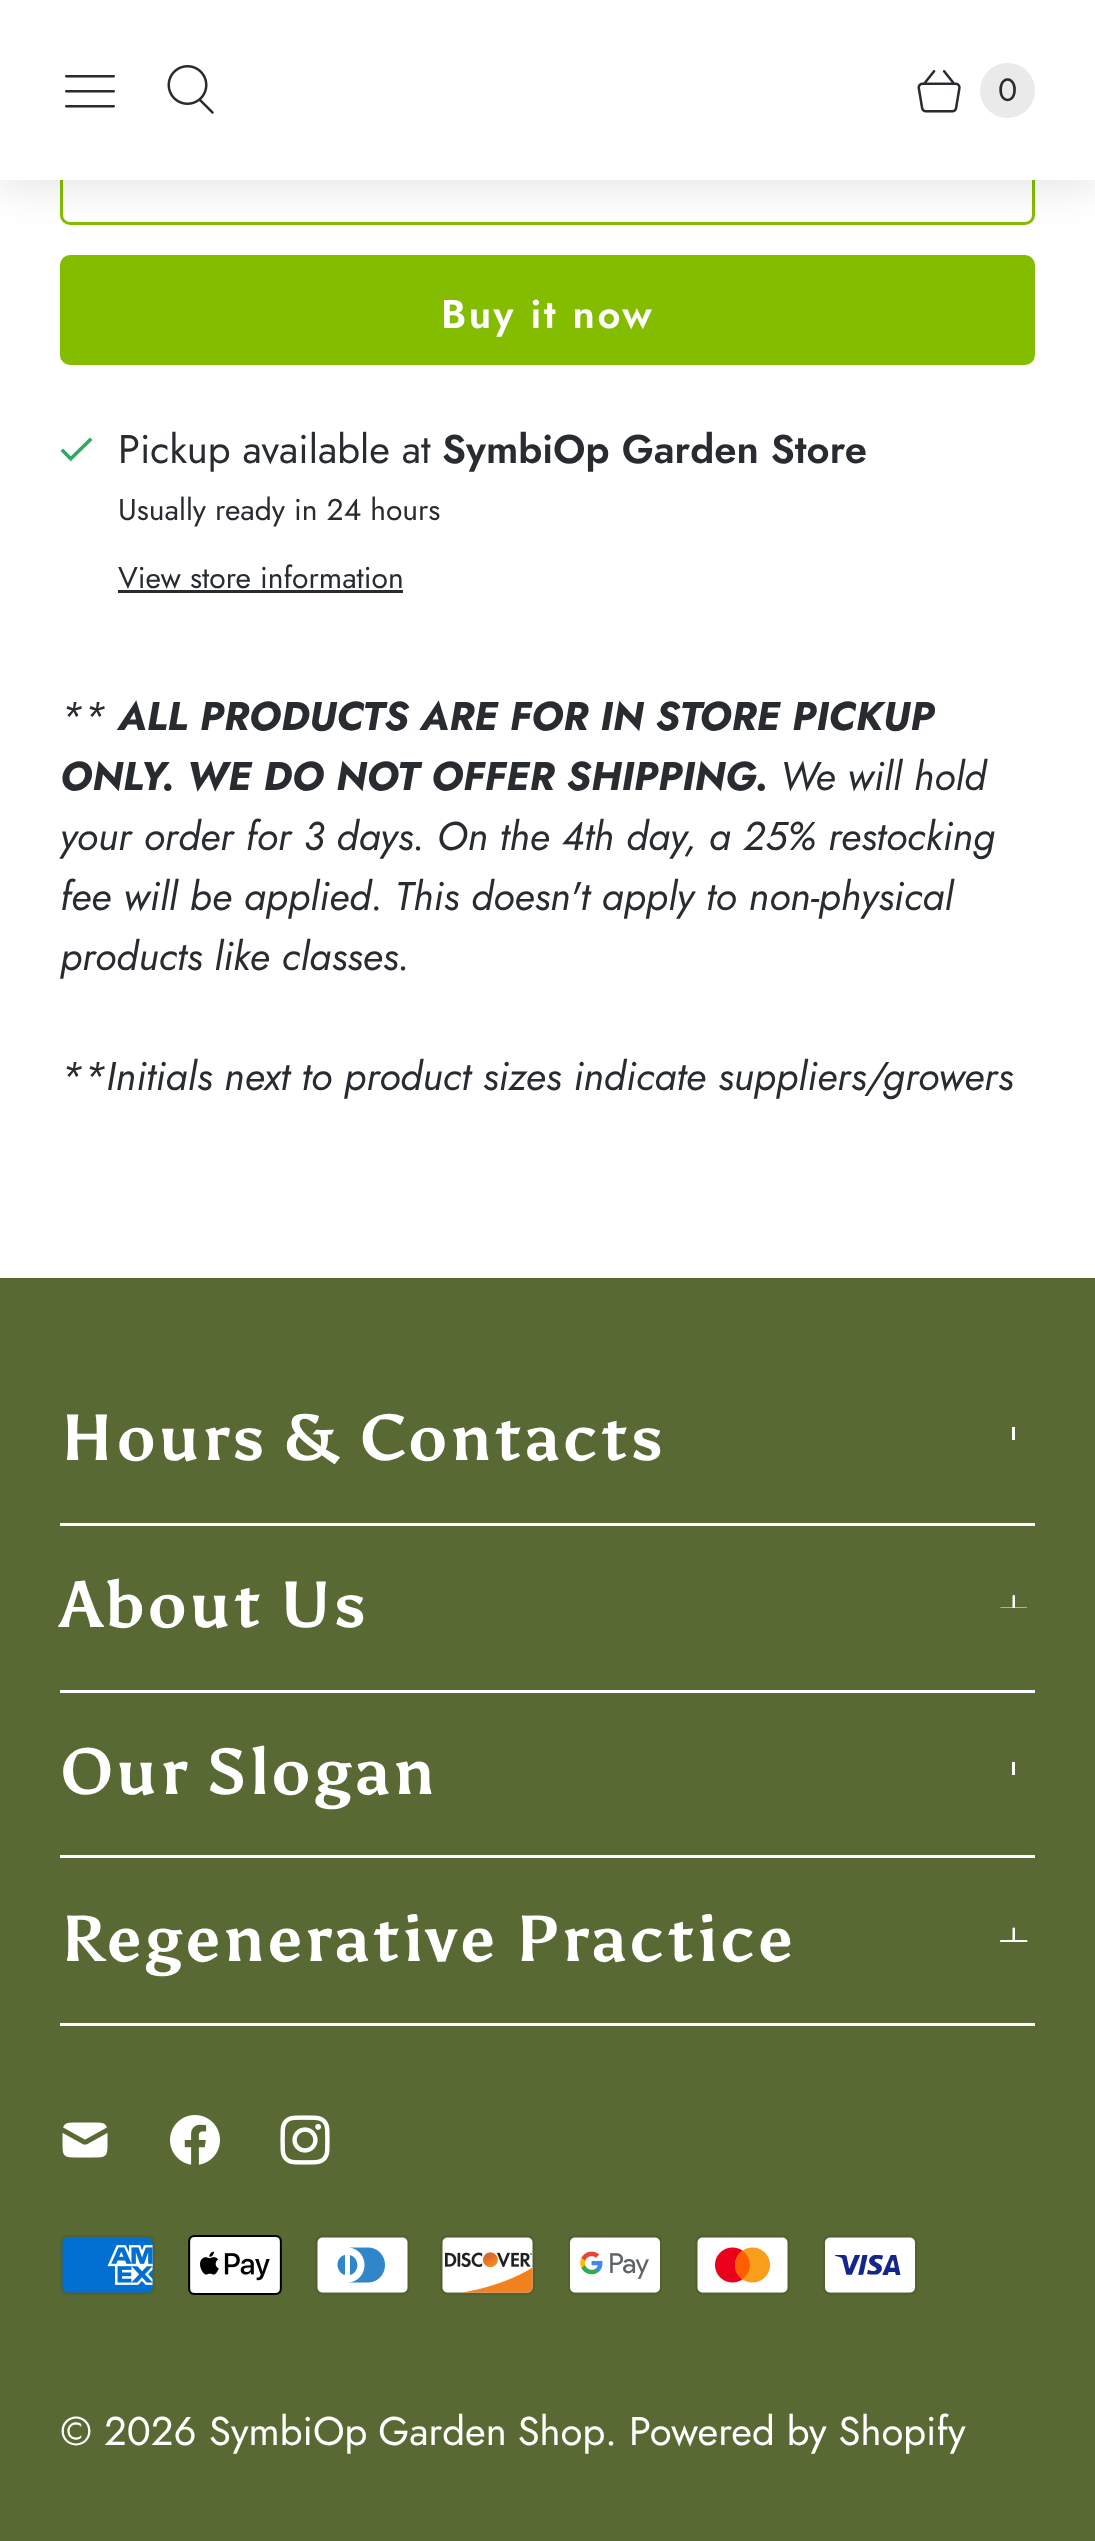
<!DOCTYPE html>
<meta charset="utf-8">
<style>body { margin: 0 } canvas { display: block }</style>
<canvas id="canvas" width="1095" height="2541"></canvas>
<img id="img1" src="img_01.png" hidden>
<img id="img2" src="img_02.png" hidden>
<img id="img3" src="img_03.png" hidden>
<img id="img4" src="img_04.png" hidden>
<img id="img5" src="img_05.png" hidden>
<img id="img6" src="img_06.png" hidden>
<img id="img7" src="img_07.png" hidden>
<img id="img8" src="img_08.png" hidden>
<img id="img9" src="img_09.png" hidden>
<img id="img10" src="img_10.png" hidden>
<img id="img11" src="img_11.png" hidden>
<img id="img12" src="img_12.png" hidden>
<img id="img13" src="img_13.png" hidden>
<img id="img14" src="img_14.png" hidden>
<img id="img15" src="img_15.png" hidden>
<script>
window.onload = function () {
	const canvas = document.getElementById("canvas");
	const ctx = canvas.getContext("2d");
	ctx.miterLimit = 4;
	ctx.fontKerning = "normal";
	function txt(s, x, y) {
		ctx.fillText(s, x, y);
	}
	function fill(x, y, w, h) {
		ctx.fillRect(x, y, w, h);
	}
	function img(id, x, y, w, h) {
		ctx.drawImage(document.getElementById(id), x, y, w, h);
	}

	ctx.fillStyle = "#FFFFFF";
	fill(0, 0, 1095, 2541);
	ctx.beginPath();
	ctx.roundRect(61.5, 106.5, 972, 117, 8.5);
	ctx.strokeStyle = "#84BD00";
	ctx.lineWidth = 3;
	ctx.stroke();
	ctx.fillStyle = "rgba(0, 0, 0, 0.1)";
	ctx.filter = "blur(20px)";
	ctx.beginPath();
	ctx.rect(-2, -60, 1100, 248);
	ctx.fill();
	ctx.filter = "none";
	ctx.fillStyle = "#FFFFFF";
	fill(0, 0, 1095, 180);
	img("img1", 65, 75, 50, 33);
	img("img2", 167, 65, 47, 49);
	img("img3", 917, 70, 44, 43);
	ctx.fillStyle = "#EAEAEA";
	ctx.beginPath();
	ctx.arc(1007.5, 90.5, 27.5, 0, Math.PI * 2);
	ctx.fill();
	ctx.fillStyle = "#84BD00";
	ctx.beginPath();
	ctx.roundRect(61.5, 256.5, 972, 107, 8.5);
	ctx.fill();
	ctx.stroke();
	ctx.fillStyle = "#32A960";
	ctx.beginPath();
	ctx.moveTo(71, 459);
	ctx.lineTo(69.5, 460);
	ctx.lineTo(71, 461.5);
	ctx.lineTo(72, 460);
	ctx.closePath();
	ctx.moveTo(60.5, 451);
	ctx.lineTo(69.5, 460);
	ctx.lineTo(72, 457.5);
	ctx.lineTo(63, 448.5);
	ctx.closePath();
	ctx.moveTo(72, 460);
	ctx.lineTo(92.5, 440);
	ctx.lineTo(90, 437.5);
	ctx.lineTo(69.5, 457.5);
	ctx.closePath();
	ctx.fill();
	ctx.fillStyle = "#282C30";
	fill(118, 590, 285, 3);
	ctx.fillStyle = "#596933";
	fill(0, 1278, 1095, 1263);
	ctx.fillStyle = "#FFFFFF";
	fill(60, 1523, 975, 3);
	fill(1012, 1427, 3, 13);
	fill(60, 1690, 975, 3);
	img("img4", 1000, 1595, 28, 13);
	fill(60, 1855, 975, 3);
	fill(1012, 1762, 3, 13);
	fill(60, 2023, 975, 3);
	img("img5", 1000, 1927, 28, 15);
	img("img6", 62, 2122, 46, 36);
	img("img7", 170, 2115, 50, 50);
	img("img8", 280, 2115, 50, 50);
	img("img9", 60, 2235, 95, 60);
	img("img10", 188, 2235, 94, 60);
	img("img11", 315, 2235, 95, 60);
	img("img12", 440, 2235, 95, 60);
	img("img13", 568, 2235, 94, 60);
	img("img14", 695, 2235, 95, 60);
	img("img15", 823, 2235, 94, 60);
	ctx.font = "32px Jost";
	ctx.fillStyle = "#282C30";
	txt("0", 998, 101);
	ctx.letterSpacing = "2.5px";
	ctx.font = "600 40px Jost";
	ctx.fillStyle = "#FFFFFF";
	txt("Buy it now", 441, 328);
	ctx.letterSpacing = "0px";
	ctx.font = "40px Jost";
	ctx.fillStyle = "#282C30";
	txt("Pickup available at", 118, 463);
	ctx.font = "600 40px Jost";
	txt("SymbiOp Garden Store", 442, 463);
	ctx.font = "30px Jost";
	txt("Usually ready in 24 hours", 118, 520);
	txt("View store information", 118, 588);
	ctx.font = "italic 40px Jost";
	txt("**", 60, 730);
	ctx.font = "italic bold 40px Jost";
	txt("ALL PRODUCTS ARE FOR IN STORE PICKUP", 118, 730);
	txt("ONLY. WE DO NOT OFFER SHIPPING.", 60, 790);
	ctx.font = "italic 40px Jost";
	txt("We will hold", 780, 790);
	txt("your order for 3 days. On the 4th day, a 25% restocking", 60, 850);
	txt("fee will be applied. This doesn't apply to non-physical", 60, 910);
	txt("products like classes.", 60, 970);
	txt("**Initials next to product sizes indicate suppliers/growers", 60, 1090);
	ctx.letterSpacing = "2.5px";
	ctx.font = "bold 65px Asul";
	ctx.fillStyle = "#FFFFFF";
	txt("Hours & Contacts", 60, 1460);
	txt("About Us", 60, 1627);
	txt("Our Slogan", 60, 1794);
	txt("Regenerative Practice", 60, 1961);
	ctx.letterSpacing = "0px";
	ctx.font = "40px Jost";
	txt("© 2026", 60, 2445);
	ctx.wordSpacing = "-1px";
	txt("SymbiOp Garden Shop", 209, 2445);
	ctx.wordSpacing = "0px";
	txt(". Powered by Shopify", 605, 2445);
};
</script>
